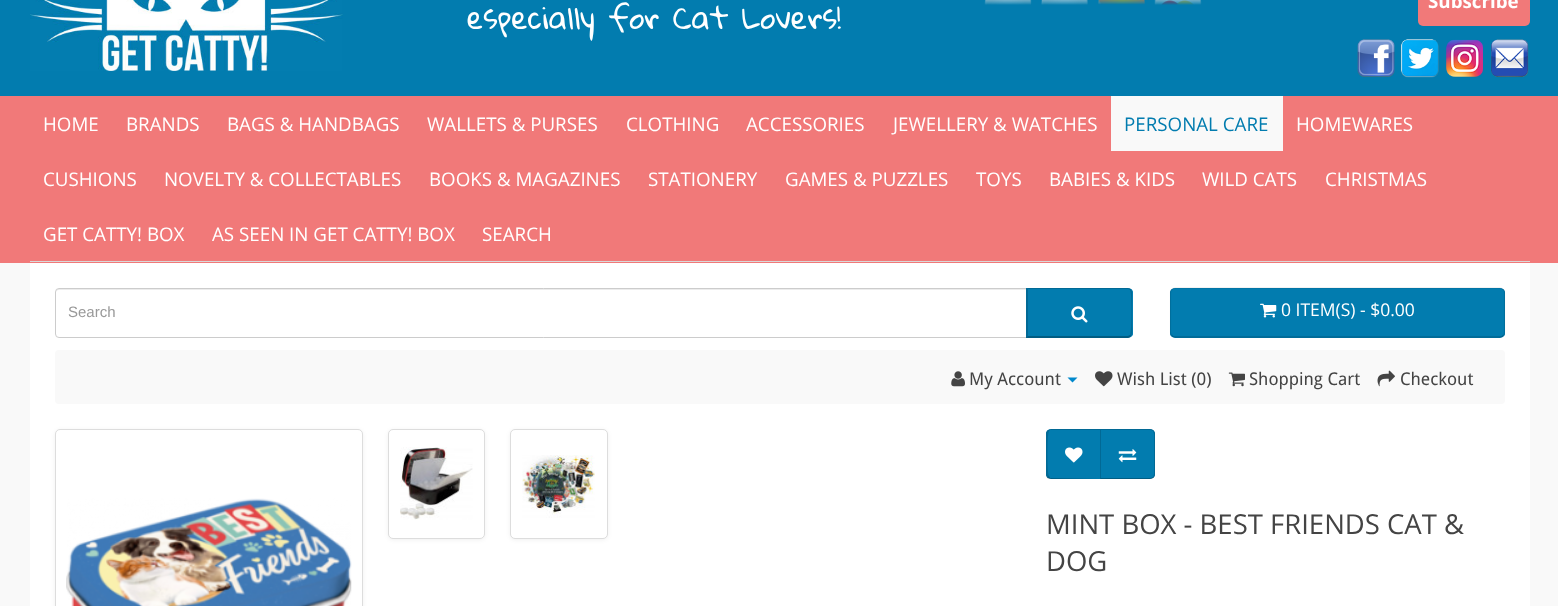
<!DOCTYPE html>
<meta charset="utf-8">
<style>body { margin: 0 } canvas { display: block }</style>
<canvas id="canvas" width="1558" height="606"></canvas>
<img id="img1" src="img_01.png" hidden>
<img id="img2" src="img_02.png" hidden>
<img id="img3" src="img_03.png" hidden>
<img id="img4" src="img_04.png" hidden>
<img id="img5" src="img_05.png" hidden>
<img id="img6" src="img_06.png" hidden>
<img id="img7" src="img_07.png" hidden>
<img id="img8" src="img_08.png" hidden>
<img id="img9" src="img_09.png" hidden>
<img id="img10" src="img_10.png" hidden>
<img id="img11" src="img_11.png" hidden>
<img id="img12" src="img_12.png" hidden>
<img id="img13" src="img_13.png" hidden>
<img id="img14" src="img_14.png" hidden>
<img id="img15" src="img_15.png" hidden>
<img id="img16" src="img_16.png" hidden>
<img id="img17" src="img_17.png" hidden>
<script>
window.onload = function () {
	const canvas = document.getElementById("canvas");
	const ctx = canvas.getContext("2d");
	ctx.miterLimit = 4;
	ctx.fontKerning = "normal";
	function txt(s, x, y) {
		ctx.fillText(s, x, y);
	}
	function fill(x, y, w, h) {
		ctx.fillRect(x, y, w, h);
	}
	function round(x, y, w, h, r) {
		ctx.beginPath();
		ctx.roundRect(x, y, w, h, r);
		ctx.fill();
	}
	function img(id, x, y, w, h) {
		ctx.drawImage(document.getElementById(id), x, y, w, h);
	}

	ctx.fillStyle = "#F9F9F9";
	fill(0, 0, 1558, 606);
	ctx.fillStyle = "#027CAF";
	fill(0, 0, 1558, 96);
	img("img1", 30, 0, 313, 71);
	img("img2", 984, 0, 218, 5);
	ctx.fillStyle = "#F17979";
	round(1418, -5, 112, 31, 5);
	img("img3", 1357, 39, 38, 39);
	img("img4", 1401, 39, 38, 39);
	img("img5", 1446, 39, 37, 39);
	img("img6", 1491, 39, 38, 39);
	fill(0, 96, 1558, 167);
	ctx.fillStyle = "#D9D9D9";
	fill(30, 261, 1500, 1);
	ctx.fillStyle = "#F9F9F9";
	fill(1111, 96, 172, 55);
	ctx.fillStyle = "#FFFFFF";
	fill(30, 263, 1500, 343);
	ctx.fillStyle = "#ECECEC";
	ctx.beginPath();
	ctx.moveTo(59, 290);
	ctx.lineTo(1026, 290);
	ctx.lineTo(1026, 289);
	ctx.lineTo(58, 289);
	ctx.bezierCurveTo(57, 289, 56, 290, 56, 292);
	ctx.bezierCurveTo(56, 291, 57, 290, 59, 290);
	ctx.closePath();
	ctx.fill();
	ctx.beginPath();
	ctx.roundRect(55.5, 288.5, 972, 49, [3.5, 0, 0, 3.5]);
	ctx.strokeStyle = "#CCCCCC";
	ctx.stroke();
	ctx.fillStyle = "#027CAF";
	ctx.beginPath();
	ctx.roundRect(1026, 288, 107, 50, [0, 5, 5, 0]);
	ctx.fill();
	ctx.save();
	ctx.beginPath();
	ctx.roundRect(1026, 288, 107, 50, [0, 5, 5, 0]);
	ctx.clip();
	fill(1026, 289, 107, 47);
	ctx.restore();
	ctx.fillStyle = "rgba(0, 0, 0, 0.15)";
	ctx.beginPath();
	ctx.moveTo(1028, 289);
	ctx.lineTo(1128, 289);
	ctx.lineTo(1130, 290);
	ctx.lineTo(1131, 289);
	ctx.lineTo(1128, 288);
	ctx.lineTo(1027, 288);
	ctx.closePath();
	ctx.fill();
	ctx.beginPath();
	ctx.moveTo(1131, 289);
	ctx.lineTo(1132, 292);
	ctx.lineTo(1132, 325);
	ctx.bezierCurveTo(1132, 328, 1133, 333, 1131, 336);
	ctx.lineTo(1130, 335);
	ctx.bezierCurveTo(1132, 333, 1132, 291, 1130, 290);
	ctx.closePath();
	ctx.fill();
	ctx.fillStyle = "rgba(0, 0, 0, 0.25)";
	ctx.beginPath();
	ctx.moveTo(1131, 336);
	ctx.lineTo(1129, 338);
	ctx.lineTo(1026, 338);
	ctx.lineTo(1028, 336);
	ctx.lineTo(1128, 336);
	ctx.lineTo(1130, 335);
	ctx.closePath();
	ctx.fill();
	ctx.fillStyle = "rgba(0, 0, 0, 0.15)";
	ctx.beginPath();
	ctx.moveTo(1026, 338);
	ctx.lineTo(1028, 336);
	ctx.lineTo(1028, 289);
	ctx.lineTo(1026, 288);
	ctx.closePath();
	ctx.fill();
	img("img7", 1071, 306, 17, 17);
	ctx.fillStyle = "#027CAF";
	round(1170, 288, 335, 50, 5);
	ctx.save();
	ctx.beginPath();
	ctx.roundRect(1170, 288, 335, 50, 5);
	ctx.clip();
	fill(1170, 289, 335, 47);
	ctx.restore();
	ctx.beginPath();
	ctx.moveTo(1503, 335.5);
	ctx.bezierCurveTo(1502.5, 336.5, 1501, 337, 1500, 337);
	ctx.lineTo(1175, 337);
	ctx.bezierCurveTo(1174, 337, 1172.5, 336.5, 1172, 335.5);
	ctx.strokeStyle = "rgba(0, 0, 0, 0.25)";
	ctx.lineWidth = 1.2;
	ctx.stroke();
	ctx.beginPath();
	ctx.moveTo(1172, 335.5);
	ctx.bezierCurveTo(1171, 335, 1170.5, 333.5, 1170.5, 332.5);
	ctx.lineTo(1170.5, 292.5);
	ctx.bezierCurveTo(1170.5, 291.5, 1171, 290, 1172, 289.5);
	ctx.bezierCurveTo(1172.5, 288.5, 1174, 288, 1175, 288);
	ctx.lineTo(1500, 288);
	ctx.bezierCurveTo(1501, 288, 1502.5, 288.5, 1503, 289.5);
	ctx.bezierCurveTo(1504, 290, 1504.5, 291.5, 1504.5, 292.5);
	ctx.lineTo(1504.5, 332.5);
	ctx.bezierCurveTo(1504.5, 333.5, 1504, 335, 1503, 335.5);
	ctx.strokeStyle = "rgba(0, 0, 0, 0.1)";
	ctx.stroke();
	img("img8", 1260, 303, 17, 15);
	ctx.fillStyle = "#F9F9F9";
	round(55, 350, 1450, 54, 4);
	img("img9", 951, 371, 14, 16);
	ctx.fillStyle = "#0088CC";
	ctx.beginPath();
	ctx.moveTo(1067.5, 377.5);
	ctx.lineTo(1077.5, 377.5);
	ctx.lineTo(1072.5, 382.5);
	ctx.closePath();
	ctx.fill();
	img("img10", 1095, 371, 18, 16);
	img("img11", 1228, 372, 17, 15);
	img("img12", 1377, 370, 18, 17);
	ctx.fillStyle = "rgba(0, 0, 0, 0.06)";
	ctx.filter = "blur(2px)";
	ctx.beginPath();
	ctx.roundRect(55, 430, 308, 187, 5);
	ctx.fill();
	ctx.filter = "none";
	ctx.fillStyle = "#FFFFFF";
	ctx.beginPath();
	ctx.roundRect(55.5, 429.5, 307, 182, 4.5);
	ctx.fill();
	ctx.strokeStyle = "#DDDDDD";
	ctx.lineWidth = 1;
	ctx.stroke();
	img("img13", 66, 498, 286, 108);
	ctx.fillStyle = "rgba(0, 0, 0, 0.06)";
	ctx.filter = "blur(2px)";
	ctx.beginPath();
	ctx.roundRect(388, 430, 97, 110, 5);
	ctx.fill();
	ctx.filter = "none";
	ctx.fillStyle = "#FFFFFF";
	ctx.beginPath();
	ctx.roundRect(388.5, 429.5, 96, 109, 4.5);
	ctx.fill();
	ctx.stroke();
	img("img14", 400, 447, 73, 73);
	ctx.fillStyle = "rgba(0, 0, 0, 0.06)";
	ctx.filter = "blur(2px)";
	ctx.beginPath();
	ctx.roundRect(510, 430, 98, 110, 5);
	ctx.fill();
	ctx.filter = "none";
	ctx.fillStyle = "#FFFFFF";
	ctx.beginPath();
	ctx.roundRect(510.5, 429.5, 97, 109, 4.5);
	ctx.fill();
	ctx.stroke();
	img("img15", 522, 455, 73, 63);
	ctx.fillStyle = "#027CAF";
	ctx.beginPath();
	ctx.roundRect(1046, 429, 55, 50, [5, 0, 0, 5]);
	ctx.fill();
	ctx.save();
	ctx.beginPath();
	ctx.roundRect(1046, 429, 55, 50, [5, 0, 0, 5]);
	ctx.clip();
	fill(1046, 430, 54, 48);
	ctx.restore();
	ctx.fillStyle = "rgba(0, 0, 0, 0.15)";
	ctx.beginPath();
	ctx.moveTo(1051, 429);
	ctx.lineTo(1048, 430);
	ctx.lineTo(1049, 431);
	ctx.lineTo(1050, 430);
	ctx.lineTo(1100, 430);
	ctx.lineTo(1101, 429);
	ctx.closePath();
	ctx.fill();
	ctx.fillStyle = "rgba(0, 0, 0, 0.25)";
	ctx.beginPath();
	ctx.moveTo(1049, 479);
	ctx.lineTo(1047, 478);
	ctx.lineTo(1049, 476);
	ctx.lineTo(1050, 478);
	ctx.lineTo(1100, 478);
	ctx.lineTo(1101, 478);
	ctx.closePath();
	ctx.fill();
	ctx.fillStyle = "rgba(0, 0, 0, 0.15)";
	ctx.beginPath();
	ctx.moveTo(1046, 432);
	ctx.lineTo(1048, 430);
	ctx.lineTo(1049, 431);
	ctx.bezierCurveTo(1047, 433, 1047, 474, 1049, 476);
	ctx.lineTo(1047, 478);
	ctx.lineTo(1046, 476);
	ctx.closePath();
	ctx.fill();
	img("img16", 1065, 447, 18, 16);
	ctx.fillStyle = "#027CAF";
	ctx.beginPath();
	ctx.roundRect(1100, 429, 55, 50, [0, 5, 5, 0]);
	ctx.fill();
	ctx.save();
	ctx.beginPath();
	ctx.roundRect(1100, 429, 55, 50, [0, 5, 5, 0]);
	ctx.clip();
	fill(1100, 430, 55, 48);
	ctx.restore();
	ctx.fillStyle = "rgba(0, 0, 0, 0.15)";
	ctx.beginPath();
	ctx.moveTo(1153, 430);
	ctx.bezierCurveTo(1153, 429, 1151, 429, 1150, 429);
	ctx.lineTo(1100, 429);
	ctx.lineTo(1101, 430);
	ctx.lineTo(1150, 430);
	ctx.bezierCurveTo(1151, 430, 1152, 430, 1153, 431);
	ctx.closePath();
	ctx.moveTo(1153, 430);
	ctx.bezierCurveTo(1154, 431, 1155, 432, 1155, 434);
	ctx.lineTo(1155, 474);
	ctx.bezierCurveTo(1155, 475, 1155, 477, 1154, 477);
	ctx.lineTo(1153, 477);
	ctx.lineTo(1154, 474);
	ctx.lineTo(1154, 434);
	ctx.lineTo(1153, 431);
	ctx.closePath();
	ctx.fill();
	ctx.fillStyle = "rgba(0, 0, 0, 0.25)";
	ctx.beginPath();
	ctx.moveTo(1152, 479);
	ctx.lineTo(1100, 479);
	ctx.lineTo(1101, 478);
	ctx.lineTo(1151, 478);
	ctx.lineTo(1153, 477);
	ctx.lineTo(1154, 477);
	ctx.closePath();
	ctx.fill();
	ctx.fillStyle = "rgba(0, 0, 0, 0.15)";
	ctx.beginPath();
	ctx.moveTo(1101, 430);
	ctx.lineTo(1100, 429);
	ctx.lineTo(1100, 479);
	ctx.lineTo(1101, 478);
	ctx.closePath();
	ctx.fill();
	img("img17", 1118, 449, 19, 14);
	ctx.font = "30px Gloria Hallelujah";
	ctx.fillStyle = "#FFFFFF";
	txt("especially for Cat Lovers!", 467, 29);
	ctx.font = "bold 18.75px Open Sans";
	txt("Subscribe", 1428, 8);
	ctx.font = "18.75px Open Sans";
	txt("HOME", 43, 131);
	txt("BRANDS", 126, 131);
	txt("BAGS & HANDBAGS", 227, 131);
	txt("WALLETS & PURSES", 427, 131);
	txt("CLOTHING", 626, 131);
	txt("ACCESSORIES", 746, 131);
	txt("JEWELLERY & WATCHES", 893, 131);
	ctx.fillStyle = "#027CAF";
	txt("PERSONAL CARE", 1124, 131);
	ctx.fillStyle = "#FFFFFF";
	txt("HOMEWARES", 1296, 131);
	txt("CUSHIONS", 43, 186);
	txt("NOVELTY & COLLECTABLES", 164, 186);
	txt("BOOKS & MAGAZINES", 429, 186);
	txt("STATIONERY", 648, 186);
	txt("GAMES & PUZZLES", 785, 186);
	txt("TOYS", 976, 186);
	txt("BABIES & KIDS", 1049, 186);
	txt("WILD CATS", 1202, 186);
	txt("CHRISTMAS", 1325, 186);
	txt("GET CATTY! BOX", 43, 241);
	txt("AS SEEN IN GET CATTY! BOX", 212, 241);
	txt("SEARCH", 482, 241);
	ctx.font = "15px Liberation Sans";
	ctx.fillStyle = "#999999";
	txt("Search", 68, 317);
	ctx.font = "17.5px Open Sans";
	ctx.fillStyle = "#FFFFFF";
	txt("0 ITEM(S) - $0.00", 1281, 316);
	ctx.font = "17.5px Droid Sans";
	ctx.fillStyle = "#444444";
	txt("My Account", 969, 385);
	txt("Wish List (0)", 1117, 385);
	txt("Shopping Cart", 1249, 385);
	txt("Checkout", 1400, 385);
	ctx.font = "27.5px Open Sans";
	txt("MINT BOX - BEST FRIENDS CAT &", 1046, 534);
	txt("DOG", 1046, 571);
};
</script>
